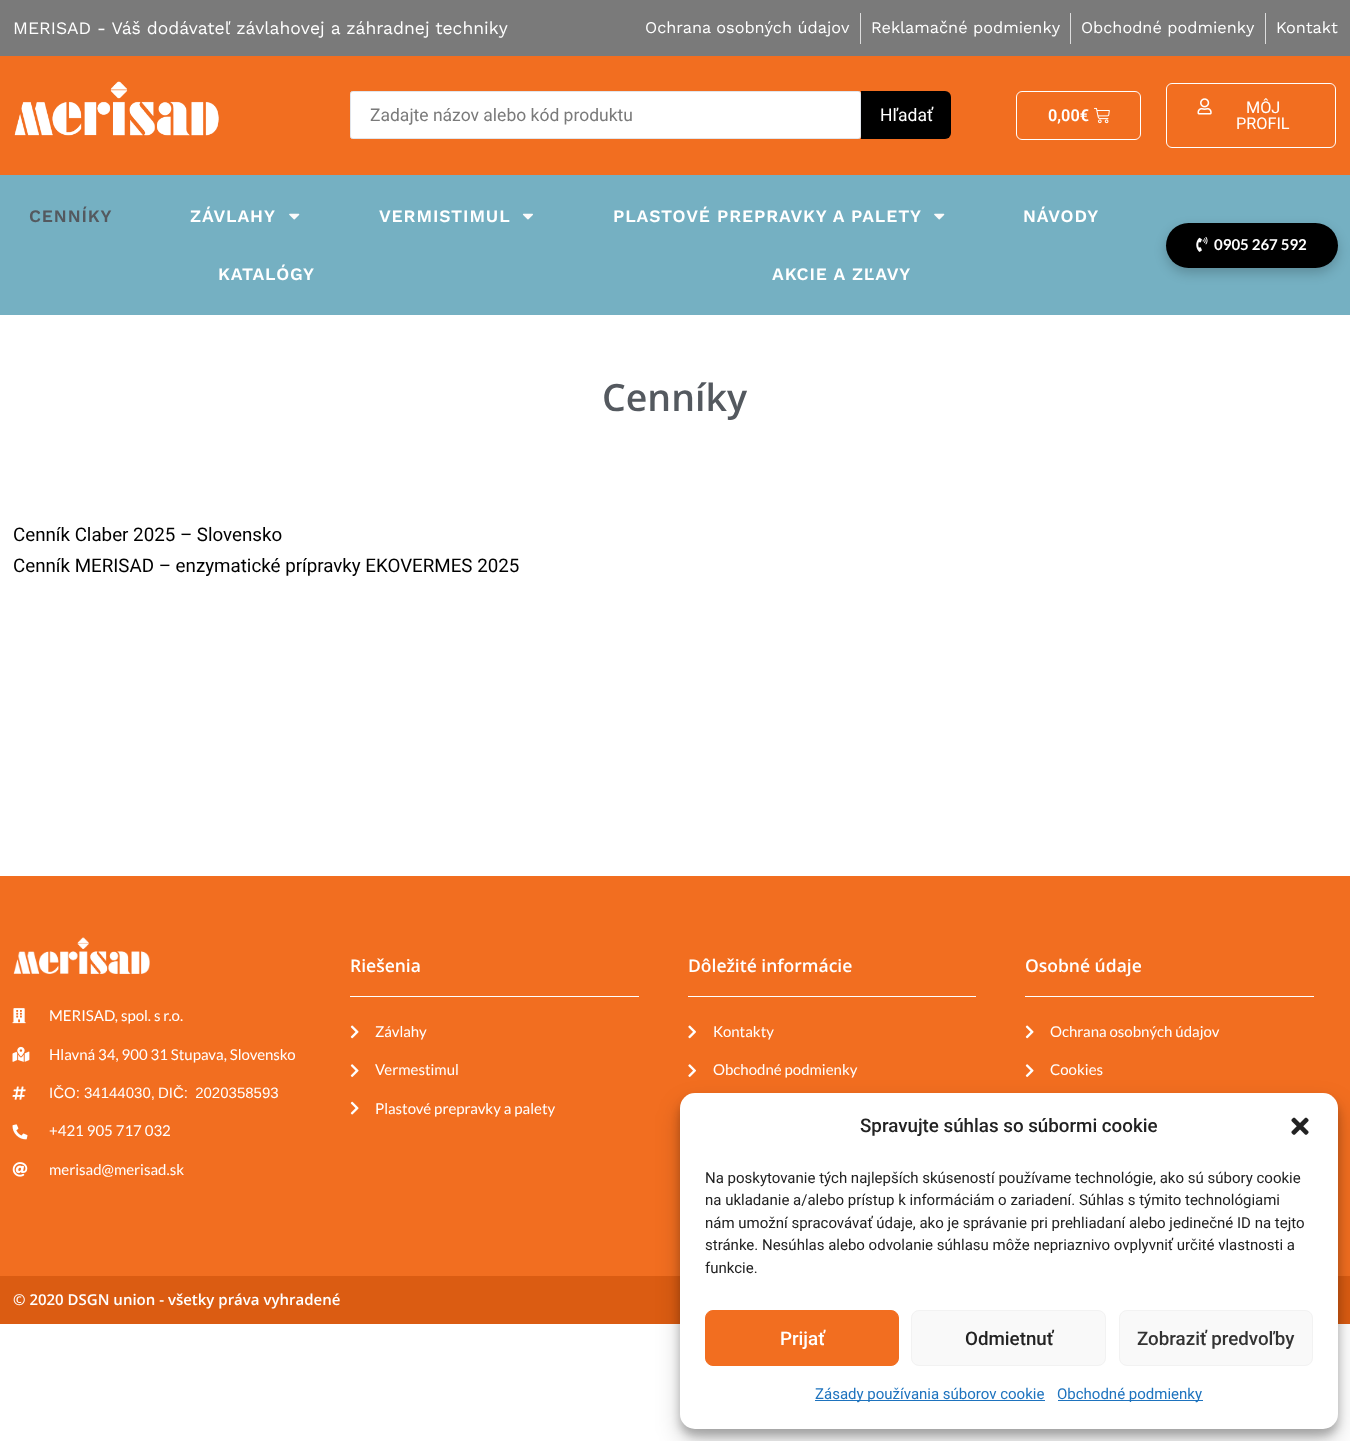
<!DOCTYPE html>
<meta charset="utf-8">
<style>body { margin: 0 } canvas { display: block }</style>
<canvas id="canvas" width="1350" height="1441"></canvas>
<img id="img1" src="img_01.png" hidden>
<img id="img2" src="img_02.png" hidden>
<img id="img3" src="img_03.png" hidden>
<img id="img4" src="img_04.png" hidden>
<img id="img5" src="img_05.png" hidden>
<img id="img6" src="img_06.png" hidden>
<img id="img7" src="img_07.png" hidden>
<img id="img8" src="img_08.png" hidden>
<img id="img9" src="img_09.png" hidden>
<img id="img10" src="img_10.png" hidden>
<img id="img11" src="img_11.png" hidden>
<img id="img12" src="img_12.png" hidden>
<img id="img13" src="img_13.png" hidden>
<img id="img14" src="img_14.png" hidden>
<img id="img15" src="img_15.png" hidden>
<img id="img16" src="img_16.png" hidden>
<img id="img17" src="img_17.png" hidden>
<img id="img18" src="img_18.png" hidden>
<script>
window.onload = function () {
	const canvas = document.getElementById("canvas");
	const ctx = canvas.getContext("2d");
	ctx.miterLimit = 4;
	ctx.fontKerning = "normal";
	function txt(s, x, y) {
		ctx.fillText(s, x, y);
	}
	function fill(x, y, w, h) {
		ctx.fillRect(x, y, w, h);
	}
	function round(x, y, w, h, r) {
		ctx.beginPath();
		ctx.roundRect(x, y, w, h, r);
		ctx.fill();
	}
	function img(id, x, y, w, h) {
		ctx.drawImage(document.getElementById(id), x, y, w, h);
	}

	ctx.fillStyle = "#FFFFFF";
	fill(0, 0, 1350, 1441);
	ctx.fillStyle = "#7A7A7A";
	fill(0, 0, 1350, 56);
	ctx.fillStyle = "#DDDDDD";
	fill(860, 13, 1, 31);
	fill(1070, 13, 1, 31);
	fill(1265, 13, 1, 31);
	ctx.fillStyle = "#F26E20";
	fill(0, 56, 1350, 119);
	img("img1", 14, 81, 205, 55);
	ctx.fillStyle = "#FFFFFF";
	ctx.beginPath();
	ctx.roundRect(350.5, 91.5, 510, 47, 2);
	ctx.fill();
	ctx.strokeStyle = "#E1E5EB";
	ctx.stroke();
	ctx.fillStyle = "#000000";
	ctx.beginPath();
	ctx.roundRect(861, 91, 90, 48, [0, 6, 6, 0]);
	ctx.fill();
	ctx.beginPath();
	ctx.roundRect(1016.5, 91.5, 124, 48, 5.5);
	ctx.strokeStyle = "#FFFFFF";
	ctx.stroke();
	img("img2", 1094, 107, 16, 17);
	ctx.beginPath();
	ctx.roundRect(1166.5, 83.5, 169, 64, 5.5);
	ctx.stroke();
	img("img3", 1197, 98, 15, 17);
	ctx.fillStyle = "#75B0C2";
	fill(0, 175, 1350, 140);
	img("img4", 289, 213, 11, 7);
	img("img5", 522, 213, 11, 7);
	img("img4", 934, 213, 11, 7);
	ctx.fillStyle = "rgba(0, 0, 0, 0.2)";
	ctx.filter = "blur(6px)";
	ctx.beginPath();
	ctx.roundRect(1166, 228, 172, 45, 22.5);
	ctx.fill();
	ctx.filter = "none";
	ctx.fillStyle = "#000000";
	round(1166, 223, 172, 45, 22.5);
	img("img6", 1196, 236, 12, 16);
	ctx.fillStyle = "#F26E20";
	fill(0, 876, 1350, 400);
	img("img7", 13, 937, 137, 37);
	img("img8", 12, 1008, 14, 16);
	img("img9", 12, 1046, 18, 16);
	img("img10", 12, 1086, 14, 14);
	img("img11", 12, 1124, 16, 16);
	img("img12", 12, 1162, 16, 15);
	ctx.fillStyle = "#FFFFFF";
	fill(350, 996, 289, 1);
	img("img13", 350, 1025, 9, 14);
	img("img14", 350, 1064, 9, 13);
	img("img15", 350, 1101, 9, 14);
	fill(688, 996, 288, 1);
	img("img16", 688, 1025, 8, 14);
	img("img17", 688, 1064, 8, 13);
	fill(1025, 996, 289, 1);
	img("img13", 1025, 1025, 9, 14);
	img("img14", 1025, 1064, 9, 13);
	ctx.fillStyle = "#DB5C12";
	fill(0, 1276, 1350, 48);
	ctx.fillStyle = "rgba(0, 0, 0, 0.23)";
	ctx.filter = "blur(4px)";
	ctx.beginPath();
	ctx.roundRect(680, 1100, 658, 336, 15);
	ctx.fill();
	ctx.filter = "none";
	ctx.fillStyle = "rgba(0, 0, 0, 0.19)";
	ctx.filter = "blur(12.5px)";
	ctx.beginPath();
	ctx.roundRect(680, 1105, 658, 336, 15);
	ctx.fill();
	ctx.filter = "none";
	ctx.fillStyle = "#FFFFFF";
	round(680, 1093, 658, 336, 15);
	img("img18", 1291, 1117, 18, 18);
	ctx.fillStyle = "#F26E20";
	ctx.beginPath();
	ctx.roundRect(705.5, 1310.5, 193, 55, 7.5);
	ctx.fill();
	ctx.strokeStyle = "#F26E20";
	ctx.stroke();
	ctx.fillStyle = "#F9F9F9";
	ctx.beginPath();
	ctx.roundRect(911.5, 1310.5, 194, 55, 7.5);
	ctx.fill();
	ctx.strokeStyle = "#F2F2F2";
	ctx.stroke();
	ctx.beginPath();
	ctx.roundRect(1119.5, 1310.5, 193, 55, 7.5);
	ctx.fill();
	ctx.stroke();
	ctx.fillStyle = "#1E73BE";
	fill(815, 1400, 230, 1);
	fill(1058, 1400, 145, 1);
	ctx.font = "17.5px Work Sans";
	ctx.fillStyle = "#FFFFFF";
	txt("MERISAD - Váš dodávateľ závlahovej a záhradnej techniky", 13, 34);
	ctx.font = "16.25px Work Sans";
	txt("Ochrana osobných údajov", 645, 33);
	txt("Reklamačné podmienky", 871, 33);
	txt("Obchodné podmienky", 1081, 33);
	txt("Kontakt", 1276, 33);
	ctx.font = "17.5px Roboto";
	ctx.fillStyle = "#7A7A7A";
	txt("Zadajte názov alebo kód produktu", 370, 121);
	ctx.fillStyle = "#FFFFFF";
	txt("Hľadať", 880, 121);
	ctx.font = "600 16.25px Roboto";
	txt("0,00€", 1048, 121);
	ctx.font = "16.25px Roboto";
	txt("MÔJ", 1246, 113);
	txt("PROFIL", 1236, 129);
	ctx.letterSpacing = "0.9px";
	ctx.font = "600 17.5px Work Sans";
	ctx.fillStyle = "#54595F";
	txt("CENNÍKY", 29, 222);
	ctx.fillStyle = "#FFFFFF";
	txt("ZÁVLAHY", 190, 222);
	txt("VERMISTIMUL", 379, 222);
	txt("PLASTOVÉ PREPRAVKY A PALETY", 613, 222);
	txt("NÁVODY", 1023, 222);
	txt("KATALÓGY", 218, 280);
	txt("AKCIE A ZĽAVY", 772, 280);
	ctx.letterSpacing = "0px";
	ctx.font = "bold 15px Lato";
	txt("0905 267 592", 1214, 250);
	ctx.font = "600 37.5px Open Sans";
	ctx.fillStyle = "#54595F";
	txt("Cenníky", 602, 411);
	ctx.font = "18.75px Roboto";
	ctx.fillStyle = "#000000";
	txt("Cenník Claber 2025 – Slovensko", 13, 541);
	txt("Cenník MERISAD – enzymatické prípravky EKOVERMES 2025", 13, 572);
	ctx.font = "15px Lato";
	ctx.fillStyle = "#FFFFFF";
	txt("MERISAD, spol. s r.o.", 49, 1021);
	txt("Hlavná 34, 900 31 Stupava, Slovensko", 49, 1060);
	ctx.font = "15px Liberation Sans";
	txt("IČO: 34144030,", 49, 1098);
	ctx.wordSpacing = "3px";
	txt("DIČ: 2020358593", 158, 1098);
	ctx.wordSpacing = "0px";
	ctx.font = "15px Lato";
	txt("+421 905 717 032", 49, 1136);
	txt("merisad@merisad.sk", 49, 1175);
	ctx.font = "600 17.5px Open Sans";
	txt("Riešenia", 350, 972);
	ctx.font = "15px Lato";
	txt("Závlahy", 375, 1037);
	txt("Vermestimul", 375, 1075);
	txt("Plastové prepravky a palety", 375, 1114);
	ctx.font = "600 17.5px Open Sans";
	txt("Dôležité informácie", 688, 972);
	ctx.font = "15px Lato";
	txt("Kontakty", 713, 1037);
	txt("Obchodné podmienky", 713, 1075);
	ctx.font = "600 17.5px Open Sans";
	txt("Osobné údaje", 1025, 972);
	ctx.font = "15px Lato";
	txt("Ochrana osobných údajov", 1050, 1037);
	txt("Cookies", 1050, 1075);
	ctx.font = "600 15px Open Sans";
	txt("© 2020 DSGN union - všetky práva vyhradené", 13, 1305);
	ctx.font = "500 18.75px Roboto";
	ctx.fillStyle = "#222222";
	txt("Spravujte súhlas so súbormi cookie", 860, 1132);
	ctx.font = "15px Roboto";
	txt("Na poskytovanie tých najlepších skúseností používame technológie, ako sú súbory cookie", 705, 1183);
	txt("na ukladanie a/alebo prístup k informáciám o zariadení. Súhlas s týmito technológiami", 705, 1205);
	txt("nám umožní spracovávať údaje, ako je správanie pri prehliadaní alebo jedinečné ID na tejto", 705, 1228);
	txt("stránke. Nesúhlas alebo odvolanie súhlasu môže nepriaznivo ovplyvniť určité vlastnosti a", 705, 1250);
	txt("funkcie.", 705, 1273);
	ctx.font = "500 18.75px Roboto";
	ctx.fillStyle = "#FFFFFF";
	txt("Prijať", 780, 1345);
	ctx.fillStyle = "#222222";
	txt("Odmietnuť", 965, 1345);
	ctx.fillStyle = "#333333";
	txt("Zobraziť predvoľby", 1137, 1345);
	ctx.font = "15px Roboto";
	ctx.fillStyle = "#1E73BE";
	txt("Zásady používania súborov cookie", 815, 1399);
	txt("Obchodné podmienky", 1057, 1399);
};
</script>
